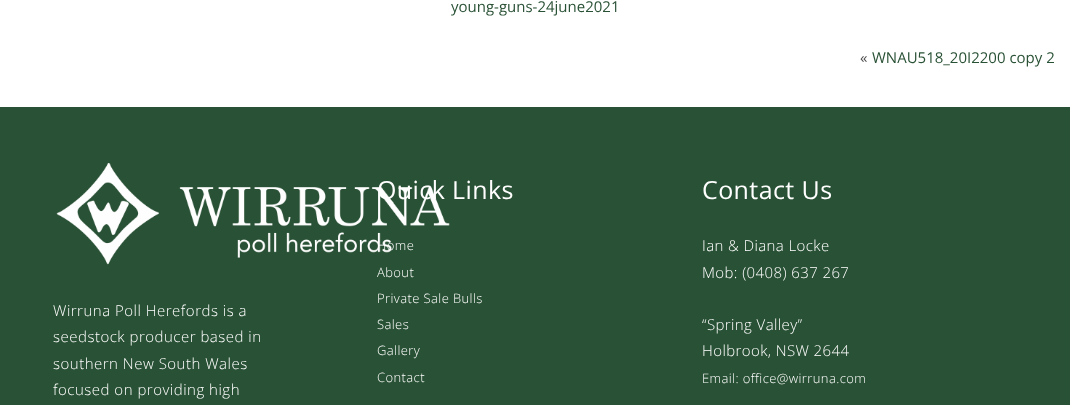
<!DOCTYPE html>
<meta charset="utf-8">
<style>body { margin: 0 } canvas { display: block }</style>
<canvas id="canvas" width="1070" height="405"></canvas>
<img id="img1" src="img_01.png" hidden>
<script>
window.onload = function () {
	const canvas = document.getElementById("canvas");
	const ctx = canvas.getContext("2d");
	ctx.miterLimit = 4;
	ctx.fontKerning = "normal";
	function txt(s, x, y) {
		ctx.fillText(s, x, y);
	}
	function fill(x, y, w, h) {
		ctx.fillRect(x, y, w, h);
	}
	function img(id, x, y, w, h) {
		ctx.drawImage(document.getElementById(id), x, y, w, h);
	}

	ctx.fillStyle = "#FFFFFF";
	fill(0, 0, 1070, 405);
	ctx.fillStyle = "#295135";
	fill(0, 107, 1070, 298);
	img("img1", 56, 163, 394, 102);
	ctx.font = "15px Open Sans";
	txt("young-guns-24june2021", 451, 12);
	ctx.fillStyle = "#4F4F4F";
	txt("«", 860, 63);
	ctx.fillStyle = "#295135";
	txt("WNAU518_20I2200 copy 2", 872, 63);
	ctx.letterSpacing = "0.5px";
	ctx.font = "300 15px Open Sans";
	ctx.fillStyle = "#FFFFFF";
	txt("Wirruna Poll Herefords is a", 53, 316);
	txt("seedstock producer based in", 53, 342);
	txt("southern New South Wales", 53, 369);
	txt("focused on providing high", 53, 395);
	ctx.letterSpacing = "0.4px";
	ctx.font = "25px Open Sans";
	txt("Quick Links", 377, 199);
	ctx.font = "300 13px Open Sans";
	txt("Home", 377, 250);
	txt("About", 377, 277);
	txt("Private Sale Bulls", 377, 303);
	txt("Sales", 377, 329);
	txt("Gallery", 377, 355);
	txt("Contact", 377, 382);
	ctx.font = "25px Open Sans";
	txt("Contact Us", 702, 199);
	ctx.font = "300 15px Open Sans";
	txt("Ian & Diana Locke", 702, 251);
	txt("Mob: (0408) 637 267", 702, 278);
	txt("“Spring Valley”", 702, 330);
	txt("Holbrook, NSW 2644", 702, 356);
	ctx.font = "300 13px Open Sans";
	txt("Email: office@wirruna.com", 702, 383);
};
</script>
